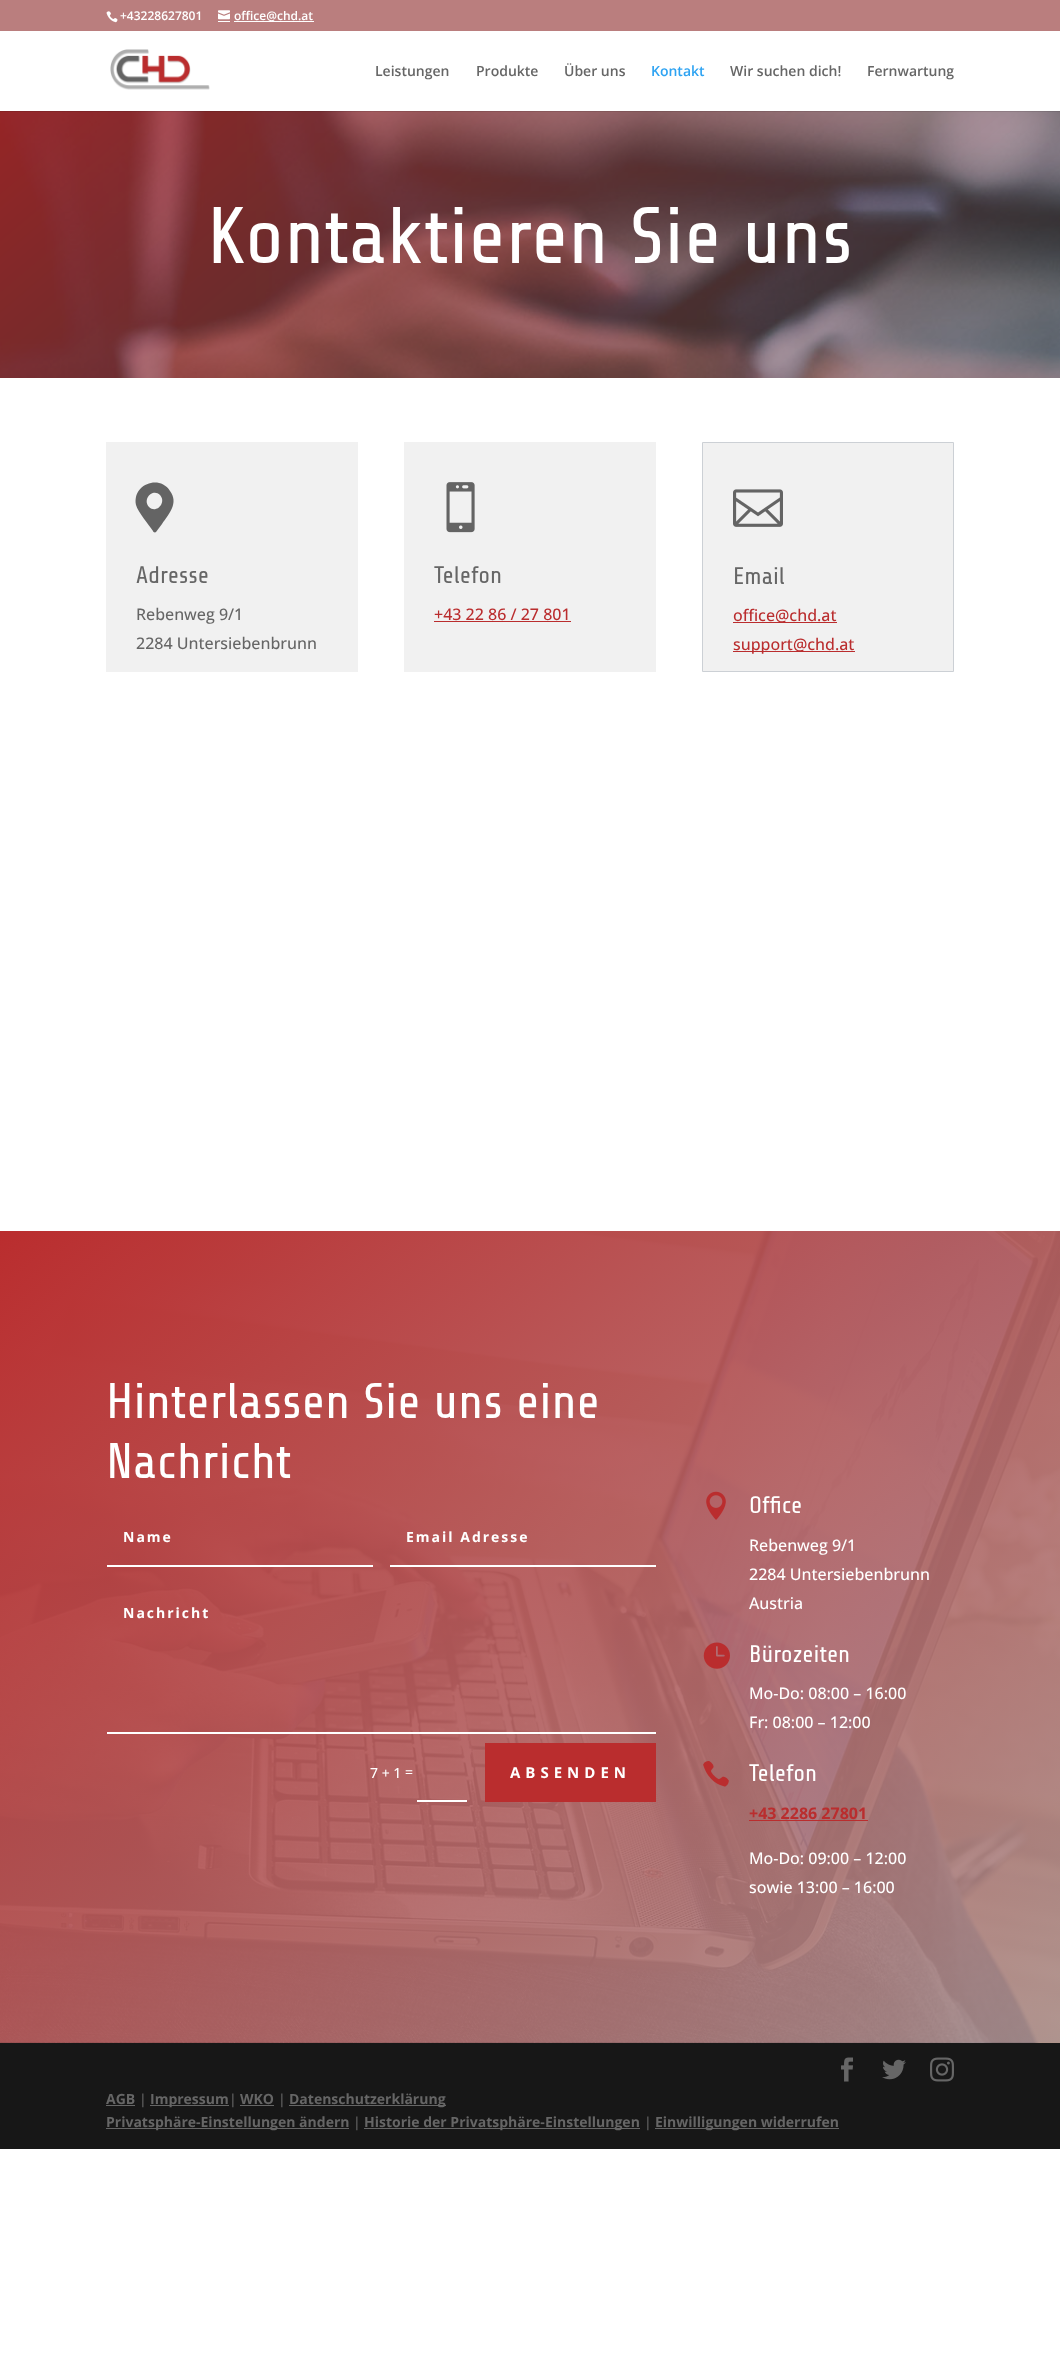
<!DOCTYPE html>
<meta charset="utf-8">
<style>body { margin: 0 } canvas { display: block }</style>
<canvas id="canvas" width="1060" height="2367"></canvas>
<img id="img1" src="img_01.png" hidden>
<img id="img2" src="img_02.png" hidden>
<img id="img3" src="img_04.png" hidden>
<img id="img4" src="img_03.png" hidden>
<img id="img5" src="img_05.png" hidden>
<img id="img6" src="img_06.png" hidden>
<img id="img7" src="img_07.png" hidden>
<img id="img8" src="img_08.png" hidden>
<img id="img9" src="img_09.png" hidden>
<img id="img10" src="img_10.png" hidden>
<img id="img11" src="img_11.png" hidden>
<img id="img12" src="img_12.png" hidden>
<img id="img13" src="img_13.png" hidden>
<script>
window.onload = function () {
	const canvas = document.getElementById("canvas");
	const ctx = canvas.getContext("2d");
	ctx.miterLimit = 4;
	ctx.fontKerning = "normal";
	function txt(s, x, y) {
		ctx.fillText(s, x, y);
	}
	function fill(x, y, w, h) {
		ctx.fillRect(x, y, w, h);
	}
	function img(id, x, y, w, h) {
		ctx.drawImage(document.getElementById(id), x, y, w, h);
	}

	ctx.fillStyle = "#FFFFFF";
	fill(0, 0, 1060, 2367);
	ctx.fillStyle = "#BA7E7E";
	fill(0, 0, 1060, 31);
	img("img1", 106, 11, 12, 12);
	img("img2", 218, 10, 12, 10);
	ctx.fillStyle = "#FFFFFF";
	fill(218, 21, 12, 1);
	fill(234, 21, 80, 1);
	img("img3", 0, 111, 1060, 267);
	ctx.fillStyle = "rgba(0, 0, 0, 0.1)";
	fill(0, 111, 1060, 1);
	img("img4", 110, 49, 100, 41);
	ctx.fillStyle = "#F1F1F1";
	fill(106, 442, 252, 230);
	ctx.fillStyle = "#646464";
	ctx.beginPath();
	ctx.moveTo(153, 531);
	ctx.bezierCurveTo(149, 525, 138, 512, 136, 505);
	ctx.bezierCurveTo(132, 485, 159, 474, 170, 491);
	ctx.bezierCurveTo(179, 503, 169, 514, 162, 524);
	ctx.lineTo(156, 532);
	ctx.bezierCurveTo(155, 533, 153, 532, 153, 531);
	ctx.closePath();
	ctx.moveTo(149, 507);
	ctx.bezierCurveTo(156, 514, 167, 503, 160, 495);
	ctx.bezierCurveTo(153, 488, 142, 499, 149, 507);
	ctx.closePath();
	ctx.fill();
	ctx.fillStyle = "#F1F1F1";
	fill(404, 442, 252, 230);
	img("img5", 446, 482, 29, 51);
	ctx.fillStyle = "#BA2D2E";
	fill(434, 621, 137, 1);
	ctx.fillStyle = "#F1F1F1";
	ctx.beginPath();
	ctx.rect(702.5, 442.5, 251, 229);
	ctx.fill();
	ctx.strokeStyle = "#CCD0D5";
	ctx.stroke();
	img("img6", 733, 489, 50, 38);
	ctx.fillStyle = "#BA2D2E";
	fill(733, 622, 104, 1);
	fill(733, 651, 122, 1);
	img("img7", 0, 1231, 1060, 812);
	ctx.fillStyle = "#FFFFFF";
	fill(107, 1565, 266, 2);
	fill(390, 1565, 266, 2);
	fill(107, 1732, 549, 2);
	fill(417, 1800, 50, 2);
	ctx.fillStyle = "#BA2D2E";
	fill(485, 1743, 171, 59);
	img("img8", 706, 1491, 20, 29);
	img("img9", 703, 1642, 27, 27);
	img("img10", 703, 1761, 26, 26);
	fill(749, 1820, 119, 1);
	ctx.fillStyle = "#171717";
	fill(0, 2043, 1060, 106);
	img("img11", 841, 2057, 12, 25);
	img("img12", 882, 2059, 24, 21);
	img("img13", 930, 2057, 24, 25);
	ctx.fillStyle = "#666666";
	fill(106, 2105, 29, 1);
	fill(150, 2105, 79, 1);
	fill(240, 2105, 34, 1);
	fill(289, 2105, 157, 1);
	fill(106, 2128, 243, 1);
	fill(364, 2128, 276, 1);
	fill(655, 2128, 184, 1);
	ctx.font = "600 12px Open Sans";
	ctx.fillStyle = "#FFFFFF";
	txt("+43228627801", 120, 20);
	txt("office@chd.at", 234, 20);
	ctx.font = "600 14px Open Sans";
	ctx.fillStyle = "#666666";
	txt("Leistungen", 375, 76);
	txt("Produkte", 476, 76);
	txt("Über uns", 564, 76);
	ctx.fillStyle = "#2EA3F2";
	txt("Kontakt", 651, 76);
	ctx.fillStyle = "#666666";
	txt("Wir suchen dich!", 730, 76);
	txt("Fernwartung", 867, 76);
	ctx.font = "80px Share Tech";
	ctx.fillStyle = "#FFFFFF";
	txt("Kontaktieren Sie uns", 207, 263);
	ctx.font = "24px Share Tech";
	ctx.fillStyle = "#666666";
	txt("Adresse", 136, 583);
	ctx.font = "500 16px Open Sans";
	txt("Rebenweg 9/1", 136, 620);
	txt("2284 Untersiebenbrunn", 136, 649);
	ctx.font = "24px Share Tech";
	txt("Telefon", 434, 583);
	ctx.font = "500 16px Open Sans";
	ctx.fillStyle = "#BA2D2E";
	txt("+43 22 86 / 27 801", 434, 620);
	ctx.font = "24px Share Tech";
	ctx.fillStyle = "#666666";
	txt("Email", 733, 584);
	ctx.font = "500 16px Open Sans";
	ctx.fillStyle = "#BA2D2E";
	txt("office@chd.at", 733, 621);
	txt("support@chd.at", 733, 650);
	ctx.font = "50px Share Tech";
	ctx.fillStyle = "#FFFFFF";
	txt("Hinterlassen Sie uns eine", 106, 1418);
	txt("Nachricht", 106, 1478);
	ctx.letterSpacing = "2px";
	ctx.font = "bold 14px Open Sans";
	txt("Name", 123, 1542);
	txt("Email Adresse", 406, 1542);
	txt("Nachricht", 123, 1618);
	ctx.letterSpacing = "0px";
	ctx.font = "500 14px Open Sans";
	txt("7 + 1", 370, 1778);
	txt("=", 405, 1777);
	ctx.letterSpacing = "5px";
	ctx.font = "bold 15px Open Sans";
	txt("ABSENDEN", 510, 1778);
	ctx.letterSpacing = "0px";
	ctx.font = "24px Share Tech";
	txt("Office", 749, 1513);
	ctx.font = "500 16px Open Sans";
	txt("Rebenweg 9/1", 749, 1551);
	txt("2284 Untersiebenbrunn", 749, 1580);
	txt("Austria", 749, 1609);
	ctx.font = "24px Share Tech";
	txt("Bürozeiten", 749, 1662);
	ctx.font = "500 16px Open Sans";
	txt("Mo-Do: 08:00 – 16:00", 749, 1699);
	txt("Fr: 08:00 – 12:00", 749, 1728);
	ctx.font = "24px Share Tech";
	txt("Telefon", 749, 1781);
	ctx.font = "bold 16px Open Sans";
	ctx.fillStyle = "#BA2D2E";
	txt("+43 2286 27801", 749, 1819);
	ctx.font = "500 16px Open Sans";
	ctx.fillStyle = "#FFFFFF";
	txt("Mo-Do: 09:00 – 12:00", 749, 1864);
	txt("sowie 13:00 – 16:00", 749, 1893);
	ctx.font = "bold 14px Open Sans";
	ctx.fillStyle = "#666666";
	txt("AGB", 106, 2104);
	ctx.font = "500 14px Open Sans";
	txt("|", 139, 2104);
	ctx.font = "bold 14px Open Sans";
	txt("Impressum", 150, 2104);
	ctx.font = "500 14px Open Sans";
	txt("|", 229, 2104);
	ctx.font = "bold 14px Open Sans";
	txt("WKO", 240, 2104);
	ctx.font = "500 14px Open Sans";
	txt("|", 278, 2104);
	ctx.font = "bold 14px Open Sans";
	txt("Datenschutzerklärung", 289, 2104);
	txt("Privatsphäre-Einstellungen ändern", 106, 2127);
	ctx.font = "500 14px Open Sans";
	txt("|", 353, 2127);
	ctx.font = "bold 14px Open Sans";
	txt("Historie der Privatsphäre-Einstellungen", 364, 2127);
	ctx.font = "500 14px Open Sans";
	txt("|", 644, 2127);
	ctx.font = "bold 14px Open Sans";
	txt("Einwilligungen widerrufen", 655, 2127);
};
</script>
